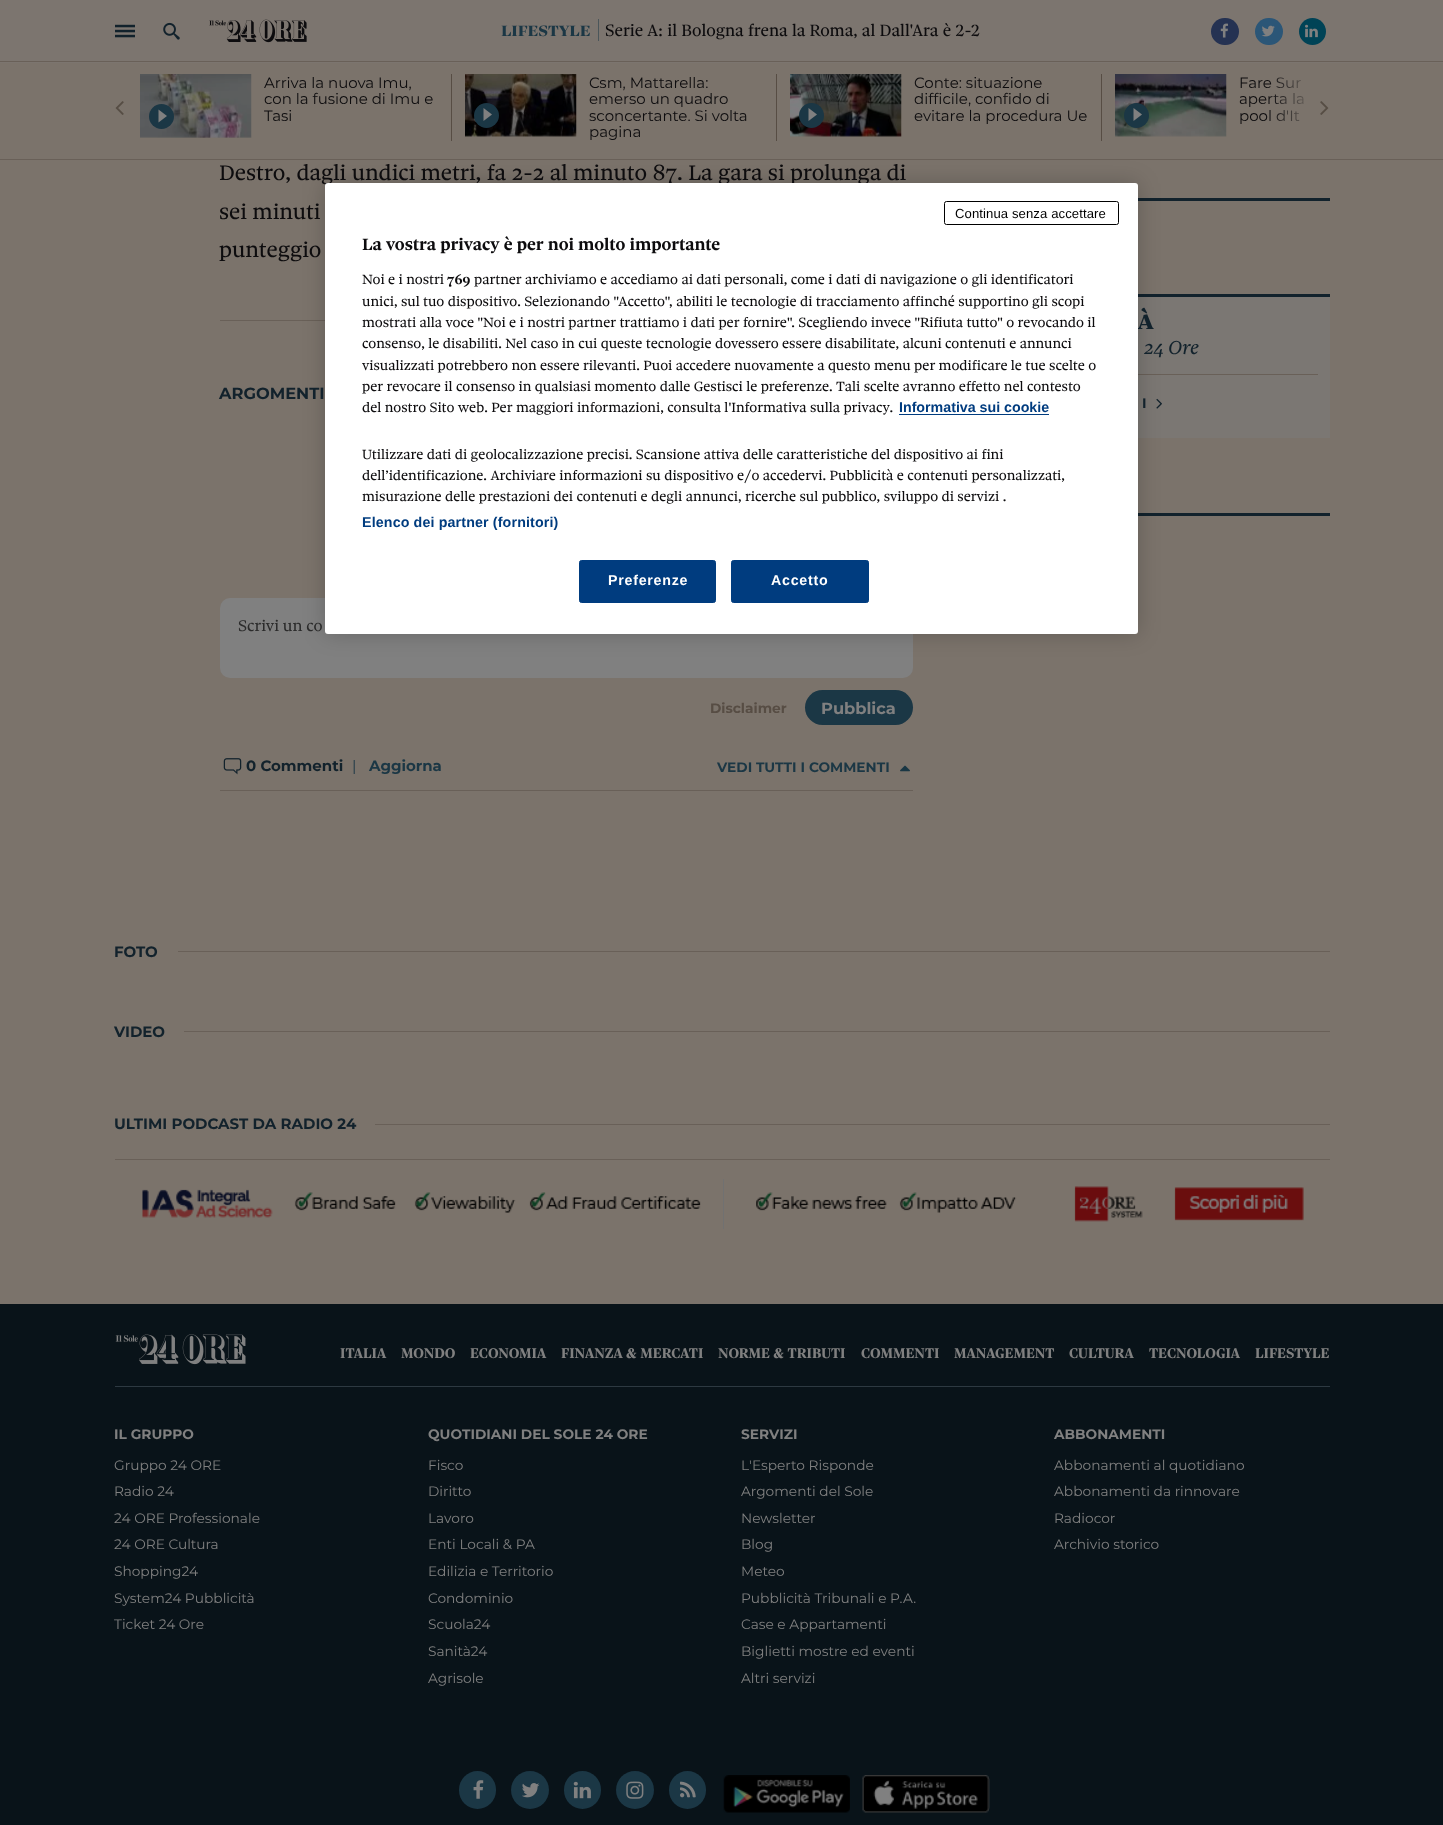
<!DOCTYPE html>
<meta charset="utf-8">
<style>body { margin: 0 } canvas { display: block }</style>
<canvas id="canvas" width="1443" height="1825"></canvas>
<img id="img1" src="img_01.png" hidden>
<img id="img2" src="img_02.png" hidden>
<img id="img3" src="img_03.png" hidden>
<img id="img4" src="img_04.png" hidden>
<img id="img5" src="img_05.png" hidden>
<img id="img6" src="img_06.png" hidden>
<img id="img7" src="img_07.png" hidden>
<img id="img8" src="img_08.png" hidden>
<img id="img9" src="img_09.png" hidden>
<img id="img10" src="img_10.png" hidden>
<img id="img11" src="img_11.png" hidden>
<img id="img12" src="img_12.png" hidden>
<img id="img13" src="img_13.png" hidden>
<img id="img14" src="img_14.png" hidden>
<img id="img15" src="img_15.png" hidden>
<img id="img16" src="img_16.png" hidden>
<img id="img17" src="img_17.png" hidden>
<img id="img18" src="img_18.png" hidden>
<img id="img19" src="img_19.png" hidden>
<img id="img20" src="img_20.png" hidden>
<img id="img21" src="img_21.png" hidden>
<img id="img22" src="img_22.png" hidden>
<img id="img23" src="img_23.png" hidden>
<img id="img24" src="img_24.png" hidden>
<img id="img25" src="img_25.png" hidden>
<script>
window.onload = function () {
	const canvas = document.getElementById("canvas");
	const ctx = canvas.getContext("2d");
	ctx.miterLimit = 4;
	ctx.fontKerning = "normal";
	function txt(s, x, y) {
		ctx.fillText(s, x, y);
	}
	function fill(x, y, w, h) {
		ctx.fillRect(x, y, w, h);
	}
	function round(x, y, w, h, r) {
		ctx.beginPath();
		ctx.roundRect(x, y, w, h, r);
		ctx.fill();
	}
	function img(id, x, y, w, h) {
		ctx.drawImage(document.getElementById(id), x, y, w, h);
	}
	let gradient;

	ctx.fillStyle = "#7B736B";
	fill(0, 0, 1443, 1825);
	ctx.fillStyle = "#7C756F";
	fill(0, 0, 1443, 63);
	ctx.fillStyle = "#696058";
	fill(0, 61, 1443, 1);
	img("img1", 115, 24, 20, 14);
	img("img2", 163, 22, 17, 18);
	img("img3", 209, 19, 98, 24);
	ctx.fillStyle = "#4B565A";
	fill(598, 19, 1, 22);
	ctx.fillStyle = "#253252";
	round(1211, 18, 28, 27, 13.5);
	img("img4", 1220, 23, 9, 15);
	ctx.fillStyle = "#2B5677";
	round(1255, 18, 28, 27, 13.5);
	img("img5", 1261, 25, 14, 12);
	ctx.fillStyle = "#004356";
	ctx.beginPath();
	ctx.arc(1312.5, 31.5, 13.5, 0, Math.PI * 2);
	ctx.fill();
	img("img6", 1305, 24, 13, 14);
	ctx.fillStyle = "#696058";
	fill(0, 159, 1443, 1);
	ctx.fillStyle = "#574D44";
	fill(451, 74, 1, 67);
	img("img7", 140, 74, 112, 64);
	ctx.fillStyle = "#1B3745";
	ctx.beginPath();
	ctx.arc(161.5, 116.5, 12.5, 0, Math.PI * 2);
	ctx.fill();
	ctx.fillStyle = "#808080";
	ctx.beginPath();
	ctx.moveTo(158.5, 109.5);
	ctx.lineTo(158.5, 122.5);
	ctx.lineTo(167, 116);
	ctx.closePath();
	ctx.fill();
	ctx.fillStyle = "#574D44";
	fill(776, 74, 1, 67);
	img("img8", 465, 74, 112, 63);
	ctx.fillStyle = "#1B3745";
	ctx.beginPath();
	ctx.arc(486.5, 115.5, 12.5, 0, Math.PI * 2);
	ctx.fill();
	ctx.fillStyle = "#808080";
	ctx.beginPath();
	ctx.moveTo(483.5, 108);
	ctx.lineTo(483.5, 121);
	ctx.lineTo(492, 114.5);
	ctx.closePath();
	ctx.fill();
	ctx.fillStyle = "#574D44";
	fill(1101, 74, 1, 67);
	img("img9", 790, 74, 112, 63);
	ctx.fillStyle = "#1B3745";
	ctx.beginPath();
	ctx.arc(811.5, 115.5, 12.5, 0, Math.PI * 2);
	ctx.fill();
	ctx.fillStyle = "#808080";
	ctx.beginPath();
	ctx.moveTo(808.5, 108);
	ctx.lineTo(808.5, 121);
	ctx.lineTo(817, 114.5);
	ctx.closePath();
	ctx.fill();
	img("img10", 1115, 74, 112, 63);
	ctx.fillStyle = "#1B3745";
	ctx.beginPath();
	ctx.arc(1136.5, 115.5, 12.5, 0, Math.PI * 2);
	ctx.fill();
	ctx.fillStyle = "#808080";
	ctx.beginPath();
	ctx.moveTo(1133.5, 108);
	ctx.lineTo(1133.5, 121);
	ctx.lineTo(1142, 114.5);
	ctx.closePath();
	ctx.fill();
	img("img11", 115, 101, 9, 14);
	img("img12", 1320, 101, 9, 14);
	ctx.fillStyle = "#696058";
	fill(220, 320, 105, 1);
	ctx.fillStyle = "#808080";
	round(220, 598, 693, 80, 10);
	ctx.fillStyle = "#1B3745";
	round(805, 690, 108, 35, 17.5);
	ctx.fillStyle = "#696058";
	fill(220, 790, 693, 1);
	img("img13", 223, 758, 19, 17);
	img("img14", 900, 765, 10, 7);
	ctx.fillStyle = "#12222C";
	fill(1138, 198, 192, 3);
	ctx.fillStyle = "#7B7773";
	fill(1138, 297, 192, 141);
	ctx.fillStyle = "#12222C";
	fill(1138, 294, 192, 3);
	ctx.fillStyle = "#696058";
	fill(1138, 374, 180, 1);
	img("img15", 1156, 398, 6, 11);
	ctx.fillStyle = "#12222C";
	fill(1138, 513, 192, 3);
	ctx.fillStyle = "#696058";
	fill(178, 951, 1152, 1);
	fill(184, 1031, 1146, 1);
	fill(115, 1159, 1215, 1);
	fill(375, 1124, 955, 1);
	img("img16", 142, 1189, 559, 29);
	ctx.fillStyle = "#717171";
	fill(723, 1179, 1, 50);
	img("img17", 756, 1186, 548, 36);
	ctx.fillStyle = "#091319";
	fill(0, 1304, 1443, 521);
	ctx.fillStyle = "#2D3941";
	fill(115, 1386, 1215, 1);
	img("img18", 115, 1334, 131, 31);
	ctx.fillStyle = "#1B3745";
	round(459, 1771, 37, 38, 18.5);
	img("img19", 473, 1780, 11, 19);
	ctx.beginPath();
	ctx.arc(530, 1790, 19, 0, Math.PI * 2);
	ctx.fill();
	img("img20", 522, 1783, 18, 15);
	round(564, 1771, 37, 38, 18.5);
	img("img21", 573, 1781, 18, 18);
	ctx.beginPath();
	ctx.arc(635, 1790, 19, 0, Math.PI * 2);
	ctx.fill();
	img("img22", 626, 1781, 18, 18);
	round(669, 1771, 37, 38, 18.5);
	img("img23", 680, 1781, 16, 17);
	img("img24", 723, 1775, 127, 38);
	img("img25", 862, 1775, 128, 38);
	ctx.fillStyle = "rgba(0, 0, 0, 0.2)";
	ctx.filter = "blur(11px)";
	ctx.beginPath();
	ctx.roundRect(325, 183, 813, 451, 3);
	ctx.fill();
	ctx.filter = "none";
	ctx.font = "900 20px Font";
	ctx.fillStyle = "#1B3745";
	txt("lifestyle", 501, 36);
	ctx.font = "17.5px 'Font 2'";
	ctx.fillStyle = "#0D0C0E";
	txt("Serie A: il Bologna frena la Roma, al Dall'Ara è 2-2", 605, 36);
	ctx.font = "15px Montserrat";
	txt("Arriva la nuova Imu,", 264, 88);
	txt("con la fusione di Imu e", 264, 104);
	txt("Tasi", 264, 121);
	txt("Csm, Mattarella:", 589, 88);
	txt("emerso un quadro", 589, 104);
	txt("sconcertante. Si volta", 589, 121);
	txt("pagina", 589, 137);
	txt("Conte: situazione", 914, 88);
	txt("difficile, confido di", 914, 104);
	txt("evitare la procedura Ue", 914, 121);
	txt("Fare Sur", 1239, 88);
	txt("aperta la", 1239, 104);
	txt("pool d'It", 1239, 121);
	gradient = ctx.createLinearGradient(1268, 108, 1330, 108);
	gradient.addColorStop(0, "rgba(123, 115, 107, 0)");
	gradient.addColorStop(0.8, "#7B736B");
	ctx.fillStyle = gradient;
	fill(1269, 77, 35, 44);
	ctx.font = "22.5px Font";
	ctx.fillStyle = "#0D0C0E";
	txt("Destro, dagli undici metri, fa 2-2 al minuto 87. La gara si prolunga di", 219, 180);
	txt("sei minuti", 219, 219);
	txt("punteggio", 219, 257);
	ctx.font = "bold 16.25px Montserrat";
	ctx.fillStyle = "#12222C";
	txt("ARGOMENTI", 219, 399);
	ctx.font = "16.25px Font";
	ctx.fillStyle = "#2B2B2B";
	txt("Scrivi un co", 238, 631);
	ctx.font = "bold 13.75px Montserrat";
	ctx.fillStyle = "#574D44";
	txt("Disclaimer", 710, 713);
	ctx.font = "bold 16.25px Montserrat";
	ctx.fillStyle = "#808080";
	txt("Pubblica", 821, 714);
	ctx.font = "bold 15px Montserrat";
	ctx.fillStyle = "#12222C";
	txt("0 Commenti", 246, 771);
	ctx.font = "15px Montserrat";
	ctx.fillStyle = "#1B3745";
	txt("|", 352, 771);
	ctx.font = "bold 15px Montserrat";
	txt("Aggiorna", 369, 771);
	ctx.font = "bold 13.75px Montserrat";
	txt("VEDI TUTTI I COMMENTI", 717, 772);
	ctx.font = "bold 28px Font";
	ctx.fillStyle = "#12222C";
	txt("à", 1138, 329);
	ctx.font = "italic 20px Font";
	txt("24 Ore", 1144, 354);
	ctx.font = "bold 13.75px Montserrat";
	txt("I", 1142, 408);
	ctx.font = "bold 15px Montserrat";
	txt("FOTO", 114, 957);
	txt("VIDEO", 114, 1037);
	txt("ULTIMI PODCAST DA RADIO 24", 114, 1129);
	ctx.font = "bold 15px Font";
	ctx.fillStyle = "#808080";
	txt("ITALIA", 340, 1358);
	txt("MONDO", 401, 1358);
	txt("ECONOMIA", 470, 1358);
	txt("FINANZA & MERCATI", 561, 1358);
	txt("NORME & TRIBUTI", 718, 1358);
	txt("COMMENTI", 861, 1358);
	txt("MANAGEMENT", 954, 1358);
	txt("CULTURA", 1069, 1358);
	txt("TECNOLOGIA", 1149, 1358);
	txt("LIFESTYLE", 1255, 1358);
	ctx.font = "bold 13.75px Montserrat";
	txt("IL GRUPPO", 114, 1439);
	ctx.font = "13.75px Montserrat";
	txt("Gruppo 24 ORE", 114, 1470);
	txt("Radio 24", 114, 1496);
	txt("24 ORE Professionale", 114, 1523);
	txt("24 ORE Cultura", 114, 1549);
	txt("Shopping24", 114, 1576);
	txt("System24 Pubblicità", 114, 1603);
	txt("Ticket 24 Ore", 114, 1629);
	ctx.font = "bold 13.75px Montserrat";
	txt("QUOTIDIANI DEL SOLE 24 ORE", 428, 1439);
	ctx.font = "13.75px Montserrat";
	txt("Fisco", 428, 1470);
	txt("Diritto", 428, 1496);
	txt("Lavoro", 428, 1523);
	txt("Enti Locali & PA", 428, 1549);
	txt("Edilizia e Territorio", 428, 1576);
	txt("Condominio", 428, 1603);
	txt("Scuola24", 428, 1629);
	txt("Sanità24", 428, 1656);
	txt("Agrisole", 428, 1683);
	ctx.font = "bold 13.75px Montserrat";
	txt("SERVIZI", 741, 1439);
	ctx.font = "13.75px Montserrat";
	txt("L'Esperto Risponde", 741, 1470);
	txt("Argomenti del Sole", 741, 1496);
	txt("Newsletter", 741, 1523);
	txt("Blog", 741, 1549);
	txt("Meteo", 741, 1576);
	txt("Pubblicità Tribunali e P.A.", 741, 1603);
	txt("Case e Appartamenti", 741, 1629);
	txt("Biglietti mostre ed eventi", 741, 1656);
	txt("Altri servizi", 741, 1683);
	ctx.font = "bold 13.75px Montserrat";
	txt("ABBONAMENTI", 1054, 1439);
	ctx.font = "13.75px Montserrat";
	txt("Abbonamenti al quotidiano", 1054, 1470);
	txt("Abbonamenti da rinnovare", 1054, 1496);
	txt("Radiocor", 1054, 1523);
	txt("Archivio storico", 1054, 1549);
	ctx.fillStyle = "#FFFFFF";
	round(325, 183, 813, 451, 3);
	ctx.beginPath();
	ctx.roundRect(944.5, 201.5, 174, 23, 2);
	ctx.strokeStyle = "#000000";
	ctx.stroke();
	ctx.letterSpacing = "0.1px";
	ctx.font = "13.1px Liberation Sans";
	ctx.fillStyle = "#000000";
	txt("Continua senza accettare", 955, 218);
	ctx.letterSpacing = "0px";
	ctx.font = "bold 17.5px 'Font 2'";
	ctx.fillStyle = "#0D0C0E";
	txt("La vostra privacy è per noi molto importante", 362, 250);
	ctx.font = "14.23px Font";
	txt("Noi e i nostri", 362, 284);
	ctx.font = "bold 14.23px 'Font 2'";
	txt("769", 447, 284);
	ctx.font = "14.23px Font";
	txt("partner archiviamo e accediamo ai dati personali, come i dati di navigazione o gli identificatori", 474, 284);
	txt("unici, sul tuo dispositivo. Selezionando \"Accetto\", abiliti le tecnologie di tracciamento affinché supportino gli scopi", 362, 306);
	txt("mostrati alla voce \"Noi e i nostri partner trattiamo i dati per fornire\". Scegliendo invece \"Rifiuta tutto\" o revocando il", 362, 327);
	txt("consenso, le disabiliti. Nel caso in cui queste tecnologie dovessero essere disabilitate, alcuni contenuti e annunci", 362, 348);
	txt("visualizzati potrebbero non essere rilevanti. Puoi accedere nuovamente a questo menu per modificare le tue scelte o", 362, 370);
	txt("per revocare il consenso in qualsiasi momento dalle Gestisci le preferenze. Tali scelte avranno effetto nel contesto", 362, 391);
	txt("del nostro Sito web. Per maggiori informazioni, consulta l'Informativa sulla privacy.", 362, 412);
	ctx.font = "bold 14.23px Liberation Sans";
	ctx.fillStyle = "#003C7F";
	txt("Informativa sui cookie", 899, 412);
	fill(899, 414, 150, 1);
	ctx.font = "14.23px Font";
	ctx.fillStyle = "#0D0C0E";
	txt("Utilizzare dati di geolocalizzazione precisi. Scansione attiva delle caratteristiche del dispositivo ai fini", 362, 459);
	txt("dell’identificazione. Archiviare informazioni su dispositivo e/o accedervi. Pubblicità e contenuti personalizzati,", 362, 480);
	txt("misurazione delle prestazioni dei contenuti e degli annunci, ricerche sul pubblico, sviluppo di servizi .", 362, 501);
	ctx.letterSpacing = "0.15px";
	ctx.font = "bold 14.23px Liberation Sans";
	ctx.fillStyle = "#003C7F";
	txt("Elenco dei partner (fornitori)", 362, 527);
	ctx.beginPath();
	ctx.roundRect(579.5, 560.5, 136, 42, 2);
	ctx.fill();
	ctx.strokeStyle = "#003C7F";
	ctx.stroke();
	ctx.letterSpacing = "0.75px";
	ctx.fillStyle = "#FFFFFF";
	txt("Preferenze", 608, 585);
	ctx.fillStyle = "#003C7F";
	ctx.beginPath();
	ctx.roundRect(731.5, 560.5, 137, 42, 2);
	ctx.fill();
	ctx.stroke();
	ctx.fillStyle = "#FFFFFF";
	txt("Accetto", 771, 585);
};
</script>
